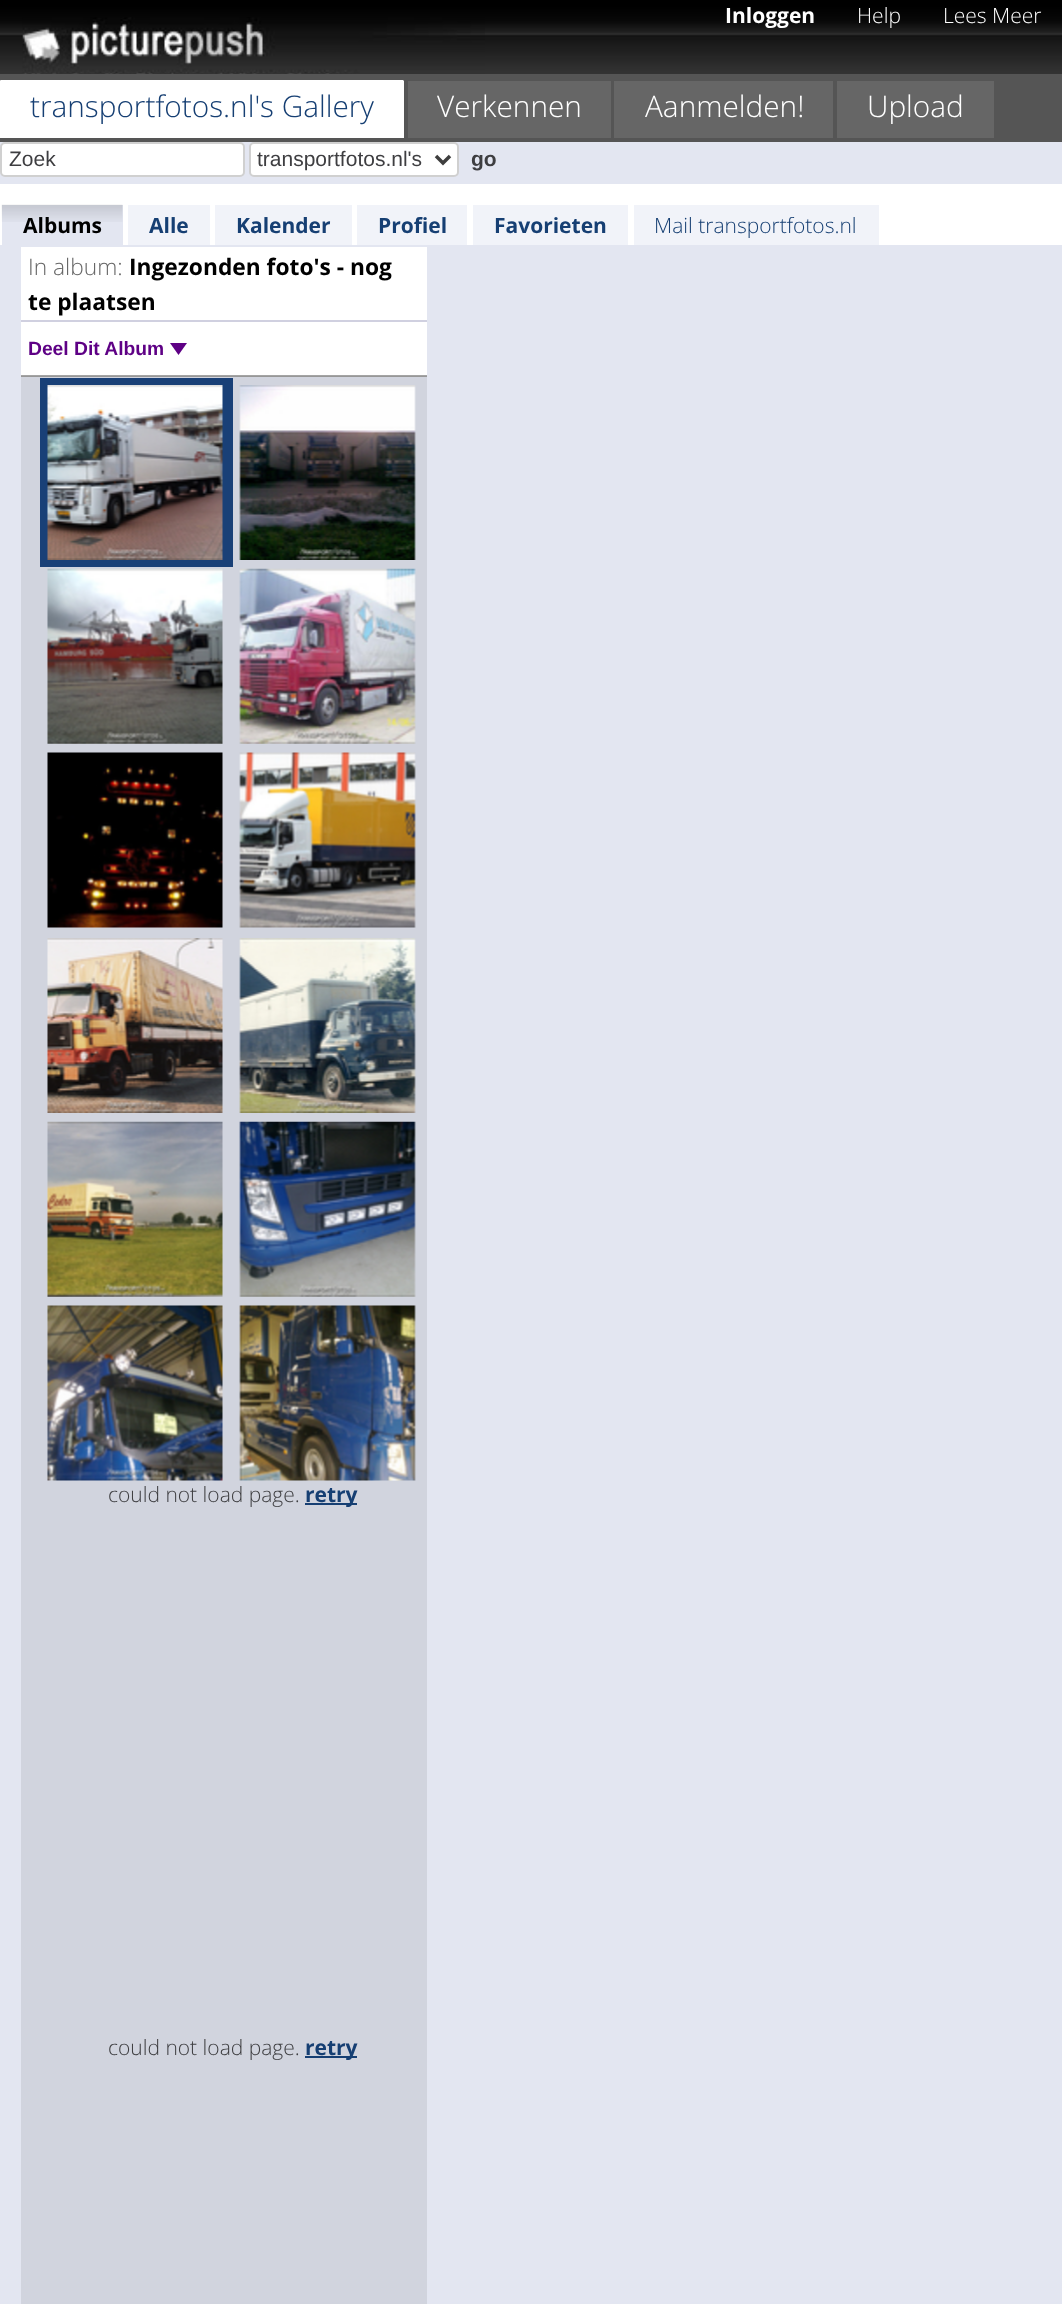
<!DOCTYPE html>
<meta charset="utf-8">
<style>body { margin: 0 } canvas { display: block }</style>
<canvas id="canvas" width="1062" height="2304"></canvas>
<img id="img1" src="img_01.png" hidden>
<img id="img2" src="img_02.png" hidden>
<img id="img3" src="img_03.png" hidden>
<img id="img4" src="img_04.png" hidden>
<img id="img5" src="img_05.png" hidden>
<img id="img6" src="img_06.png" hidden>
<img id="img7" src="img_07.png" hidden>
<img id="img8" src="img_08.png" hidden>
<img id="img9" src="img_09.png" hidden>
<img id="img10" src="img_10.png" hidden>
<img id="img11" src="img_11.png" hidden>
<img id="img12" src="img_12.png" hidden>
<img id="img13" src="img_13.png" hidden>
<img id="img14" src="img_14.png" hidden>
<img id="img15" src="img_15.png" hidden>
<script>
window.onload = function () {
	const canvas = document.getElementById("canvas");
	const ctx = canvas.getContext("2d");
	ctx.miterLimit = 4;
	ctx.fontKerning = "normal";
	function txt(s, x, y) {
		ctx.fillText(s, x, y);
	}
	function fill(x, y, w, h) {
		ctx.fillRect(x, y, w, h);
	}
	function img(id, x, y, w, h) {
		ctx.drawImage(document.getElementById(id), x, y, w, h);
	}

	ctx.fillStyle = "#E3E6F1";
	fill(0, 0, 1062, 2304);
	ctx.fillStyle = "#D1D4DE";
	fill(21, 377, 406, 1927);
	img("img1", 0, 0, 1062, 74);
	img("img2", 22, 17, 463, 57);
	ctx.fillStyle = "#555555";
	fill(0, 74, 1062, 68);
	ctx.fillStyle = "#FFFFFF";
	fill(0, 81, 404, 57);
	ctx.beginPath();
	ctx.moveTo(0, 80);
	ctx.lineTo(404, 80);
	ctx.lineTo(402, 82);
	ctx.lineTo(2, 82);
	ctx.closePath();
	ctx.fill();
	ctx.beginPath();
	ctx.moveTo(0, 138);
	ctx.lineTo(0, 80);
	ctx.lineTo(2, 82);
	ctx.lineTo(2, 136);
	ctx.closePath();
	ctx.fill();
	ctx.fillStyle = "#666666";
	fill(408, 81, 203, 57);
	fill(614, 81, 219, 57);
	fill(837, 81, 157, 57);
	ctx.fillStyle = "#FFFFFF";
	ctx.beginPath();
	ctx.roundRect(1, 143, 243, 33, 4);
	ctx.fill();
	ctx.strokeStyle = "#D0D0D0";
	ctx.lineWidth = 2;
	ctx.stroke();
	ctx.beginPath();
	ctx.roundRect(250, 143, 208, 33, 4);
	ctx.fill();
	ctx.stroke();
	ctx.beginPath();
	ctx.moveTo(436, 156);
	ctx.lineTo(443, 163);
	ctx.lineTo(450, 156);
	ctx.strokeStyle = "#3E3E3E";
	ctx.lineWidth = 3.5;
	ctx.stroke();
	fill(0, 184, 1062, 61);
	ctx.fillStyle = "#E3E6F1";
	fill(2, 205, 121, 40);
	img("img3", 1, 204, 122, 18);
	ctx.fillStyle = "#F1F3F9";
	fill(128, 205, 82, 40);
	fill(215, 205, 137, 40);
	fill(357, 205, 110, 40);
	fill(473, 205, 155, 40);
	fill(634, 205, 245, 40);
	ctx.fillStyle = "#FFFFFF";
	fill(21, 247, 406, 128);
	ctx.fillStyle = "#A4A4A4";
	fill(21, 375, 406, 1);
	ctx.fillStyle = "#979797";
	fill(21, 376, 406, 1);
	ctx.fillStyle = "#D0D0E0";
	fill(21, 320, 406, 2);
	ctx.fillStyle = "#5E0085";
	ctx.beginPath();
	ctx.moveTo(170, 343);
	ctx.lineTo(187, 343);
	ctx.lineTo(178.5, 355);
	ctx.closePath();
	ctx.fill();
	ctx.fillStyle = "#194077";
	fill(40, 378, 193, 189);
	img("img4", 47, 385, 176, 175);
	img("img5", 239, 385, 177, 175);
	img("img6", 47, 568, 176, 176);
	img("img7", 239, 568, 177, 176);
	img("img8", 47, 752, 176, 176);
	img("img9", 239, 752, 177, 176);
	img("img10", 47, 938, 176, 175);
	img("img11", 239, 938, 177, 175);
	img("img12", 47, 1121, 176, 176);
	img("img13", 239, 1121, 177, 176);
	img("img14", 47, 1305, 176, 176);
	img("img15", 239, 1305, 177, 176);
	ctx.fillStyle = "#163F73";
	fill(305, 1503, 52, 2);
	fill(305, 2056, 52, 2);
	ctx.font = "bold 21px Open Sans";
	ctx.fillStyle = "#FFFFFF";
	txt("Inloggen", 725, 23);
	ctx.font = "300 21px Open Sans";
	txt("Help", 857, 23);
	txt("Lees Meer", 943, 23);
	ctx.font = "300 29.75px Open Sans";
	ctx.fillStyle = "#163F73";
	txt("transportfotos.nl's Gallery", 30, 117);
	ctx.fillStyle = "#FFFFFF";
	txt("Verkennen", 437, 117);
	txt("Aanmelden!", 645, 117);
	txt("Upload", 867, 117);
	ctx.font = "21px Liberation Sans";
	ctx.fillStyle = "#3E3E41";
	txt("Zoek", 9, 166);
	txt("transportfotos.nl's", 257, 166);
	ctx.font = "bold 21px Liberation Sans";
	txt("go", 471, 166);
	ctx.font = "bold 21px Open Sans";
	ctx.fillStyle = "#000000";
	txt("Albums", 23, 233);
	ctx.fillStyle = "#163F73";
	txt("Alle", 149, 233);
	txt("Kalender", 236, 233);
	txt("Profiel", 378, 233);
	txt("Favorieten", 494, 233);
	ctx.font = "300 21px Open Sans";
	txt("Mail transportfotos.nl", 654, 233);
	ctx.font = "300 22.75px Open Sans";
	ctx.fillStyle = "#666666";
	txt("In album:", 28, 275);
	ctx.font = "bold 22.75px Open Sans";
	ctx.fillStyle = "#000000";
	txt("Ingezonden foto's - nog", 129, 275);
	txt("te plaatsen", 28, 310);
	ctx.font = "bold 19.25px Liberation Sans";
	ctx.fillStyle = "#5E0085";
	txt("Deel Dit Album", 28, 355);
	ctx.font = "300 21px Open Sans";
	ctx.fillStyle = "#3E3E41";
	txt("could not load page.", 108, 1502);
	ctx.font = "bold 21px Open Sans";
	ctx.fillStyle = "#163F73";
	txt("retry", 305, 1502);
	ctx.font = "300 21px Open Sans";
	ctx.fillStyle = "#3E3E41";
	txt("could not load page.", 108, 2055);
	ctx.font = "bold 21px Open Sans";
	ctx.fillStyle = "#163F73";
	txt("retry", 305, 2055);
};
</script>
